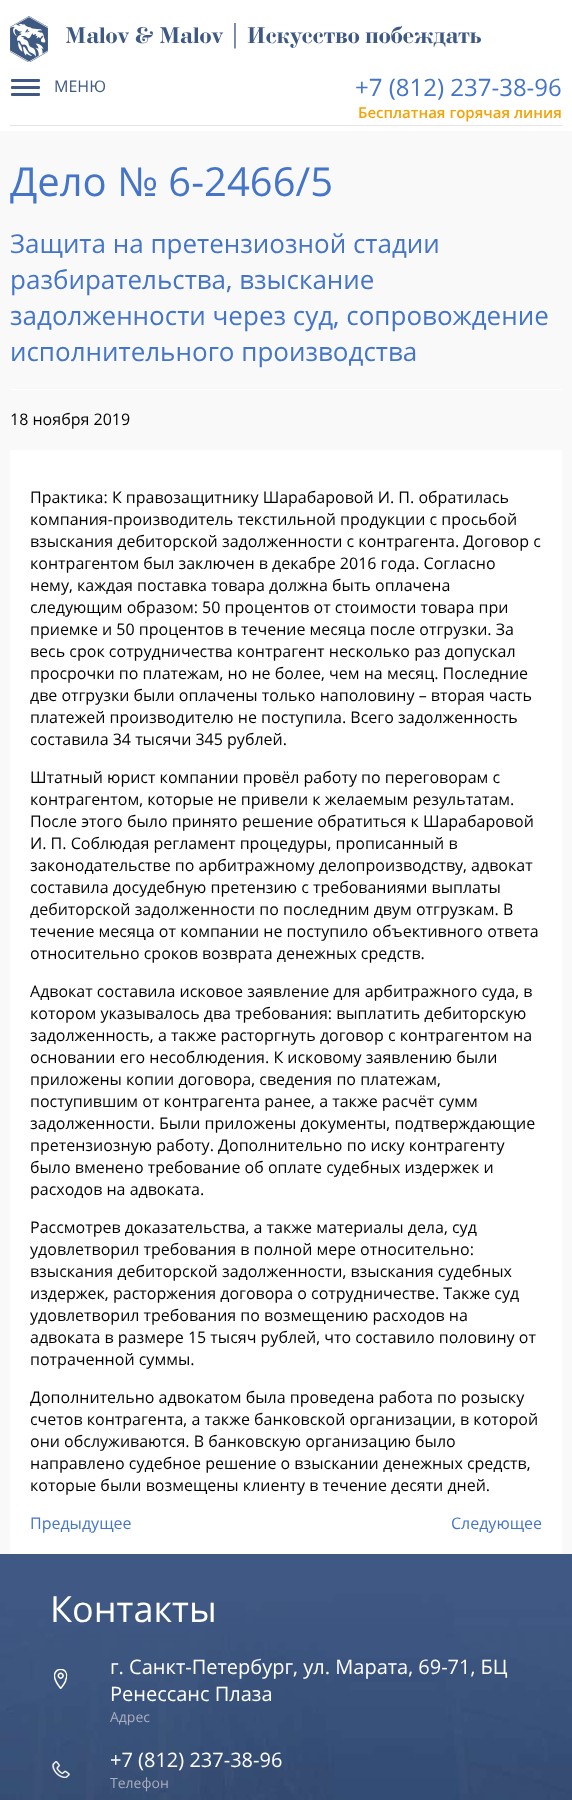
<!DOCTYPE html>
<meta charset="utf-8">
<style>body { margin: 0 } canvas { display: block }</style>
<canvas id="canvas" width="572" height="1800"></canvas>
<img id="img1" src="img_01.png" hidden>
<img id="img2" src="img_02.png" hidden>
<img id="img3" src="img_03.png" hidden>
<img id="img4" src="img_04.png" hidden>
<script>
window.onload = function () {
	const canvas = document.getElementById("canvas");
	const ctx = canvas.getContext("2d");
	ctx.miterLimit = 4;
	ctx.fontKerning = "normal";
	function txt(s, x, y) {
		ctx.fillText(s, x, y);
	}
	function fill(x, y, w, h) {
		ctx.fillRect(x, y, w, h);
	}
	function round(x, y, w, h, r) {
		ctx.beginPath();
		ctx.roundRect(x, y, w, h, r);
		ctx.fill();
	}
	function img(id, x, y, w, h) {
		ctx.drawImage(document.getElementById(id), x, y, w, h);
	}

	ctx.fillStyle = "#FFFFFF";
	fill(0, 0, 572, 1800);
	img("img1", 10, 16, 38, 46);
	ctx.fillStyle = "#3F5984";
	round(11, 79, 29, 3, 1);
	round(11, 86, 29, 3, 1);
	round(11, 93, 29, 3, 1);
	ctx.fillStyle = "#E5E5E5";
	fill(10, 125, 552, 1);
	ctx.fillStyle = "#F9F9F9";
	fill(0, 131, 572, 1423);
	ctx.fillStyle = "#FFFFFF";
	fill(10, 389, 552, 1);
	fill(10, 450, 552, 1104);
	img("img2", 0, 1554, 572, 246);
	img("img3", 54, 1669, 14, 20);
	img("img4", 52, 1761, 18, 17);
	ctx.font = "bold 24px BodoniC";
	ctx.fillStyle = "#3F5985";
	txt("Malov & Malov | Искусство побеждать", 65, 43);
	ctx.font = "16px Open Sans";
	txt("МЕНЮ", 54, 92);
	ctx.font = "24px Open Sans";
	ctx.fillStyle = "#4475C9";
	txt("+7 (812) 237-38-96", 355, 96);
	ctx.font = "600 15px Open Sans";
	ctx.fillStyle = "#F5A308";
	txt("Бесплатная горячая линия", 358, 118);
	ctx.font = "40px Open Sans";
	ctx.fillStyle = "#4475C9";
	txt("Дело № 6-2466/5", 10, 196);
	ctx.font = "26px Open Sans";
	txt("Защита на претензиозной стадии", 10, 253);
	txt("разбирательства, взыскание", 10, 289);
	txt("задолженности через суд, сопровождение", 10, 325);
	txt("исполнительного производства", 10, 361);
	ctx.font = "16px Open Sans";
	ctx.fillStyle = "#000000";
	txt("18 ноября 2019", 10, 425);
	txt("Практика: К правозащитнику Шарабаровой И. П. обратилась", 30, 503);
	txt("компания-производитель текстильной продукции с просьбой", 30, 525);
	txt("взыскания дебиторской задолженности с контрагента. Договор с", 30, 547);
	txt("контрагентом был заключен в декабре 2016 года. Согласно", 30, 569);
	txt("нему, каждая поставка товара должна быть оплачена", 30, 591);
	txt("следующим образом: 50 процентов от стоимости товара при", 30, 613);
	txt("приемке и 50 процентов в течение месяца после отгрузки. За", 30, 635);
	txt("весь срок сотрудничества контрагент несколько раз допускал", 30, 657);
	txt("просрочки по платежам, но не более, чем на месяц. Последние", 30, 679);
	txt("две отгрузки были оплачены только наполовину – вторая часть", 30, 701);
	txt("платежей производителю не поступила. Всего задолженность", 30, 723);
	txt("составила 34 тысячи 345 рублей.", 30, 745);
	txt("Штатный юрист компании провёл работу по переговорам с", 30, 783);
	txt("контрагентом, которые не привели к желаемым результатам.", 30, 805);
	txt("После этого было принято решение обратиться к Шарабаровой", 30, 827);
	txt("И. П. Соблюдая регламент процедуры, прописанный в", 30, 849);
	txt("законодательстве по арбитражному делопроизводству, адвокат", 30, 871);
	txt("составила досудебную претензию с требованиями выплаты", 30, 893);
	txt("дебиторской задолженности по последним двум отгрузкам. В", 30, 915);
	txt("течение месяца от компании не поступило объективного ответа", 30, 937);
	txt("относительно сроков возврата денежных средств.", 30, 959);
	txt("Адвокат составила исковое заявление для арбитражного суда, в", 30, 997);
	txt("котором указывалось два требования: выплатить дебиторскую", 30, 1019);
	txt("задолженность, а также расторгнуть договор с контрагентом на", 30, 1041);
	txt("основании его несоблюдения. К исковому заявлению были", 30, 1063);
	txt("приложены копии договора, сведения по платежам,", 30, 1085);
	txt("поступившим от контрагента ранее, а также расчёт сумм", 30, 1107);
	txt("задолженности. Были приложены документы, подтверждающие", 30, 1129);
	txt("претензиозную работу. Дополнительно по иску контрагенту", 30, 1151);
	txt("было вменено требование об оплате судебных издержек и", 30, 1173);
	txt("расходов на адвоката.", 30, 1195);
	txt("Рассмотрев доказательства, а также материалы дела, суд", 30, 1233);
	txt("удовлетворил требования в полной мере относительно:", 30, 1255);
	txt("взыскания дебиторской задолженности, взыскания судебных", 30, 1277);
	txt("издержек, расторжения договора о сотрудничестве. Также суд", 30, 1299);
	txt("удовлетворил требования по возмещению расходов на", 30, 1321);
	txt("адвоката в размере 15 тысяч рублей, что составило половину от", 30, 1343);
	txt("потраченной суммы.", 30, 1365);
	txt("Дополнительно адвокатом была проведена работа по розыску", 30, 1403);
	txt("счетов контрагента, а также банковской организации, в которой", 30, 1425);
	txt("они обслуживаются. В банковскую организацию было", 30, 1447);
	txt("направлено судебное решение о взыскании денежных средств,", 30, 1469);
	txt("которые были возмещены клиенту в течение десяти дней.", 30, 1491);
	ctx.fillStyle = "#4475C9";
	txt("Предыдущее", 30, 1529);
	txt("Следующее", 451, 1529);
	ctx.font = "36px Open Sans";
	ctx.fillStyle = "#FFFFFF";
	txt("Контакты", 50, 1622);
	ctx.font = "20px Open Sans";
	txt("г. Санкт-Петербург, ул. Марата, 69-71, БЦ", 110, 1674);
	txt("Ренессанс Плаза", 110, 1701);
	ctx.font = "14px Open Sans";
	ctx.fillStyle = "#ABADBF";
	txt("Адрес", 110, 1722);
	ctx.font = "20px Open Sans";
	ctx.fillStyle = "#FFFFFF";
	txt("+7 (812) 237-38-96", 110, 1767);
	ctx.font = "14px Open Sans";
	ctx.fillStyle = "#ABADBF";
	txt("Телефон", 110, 1788);
};
</script>
